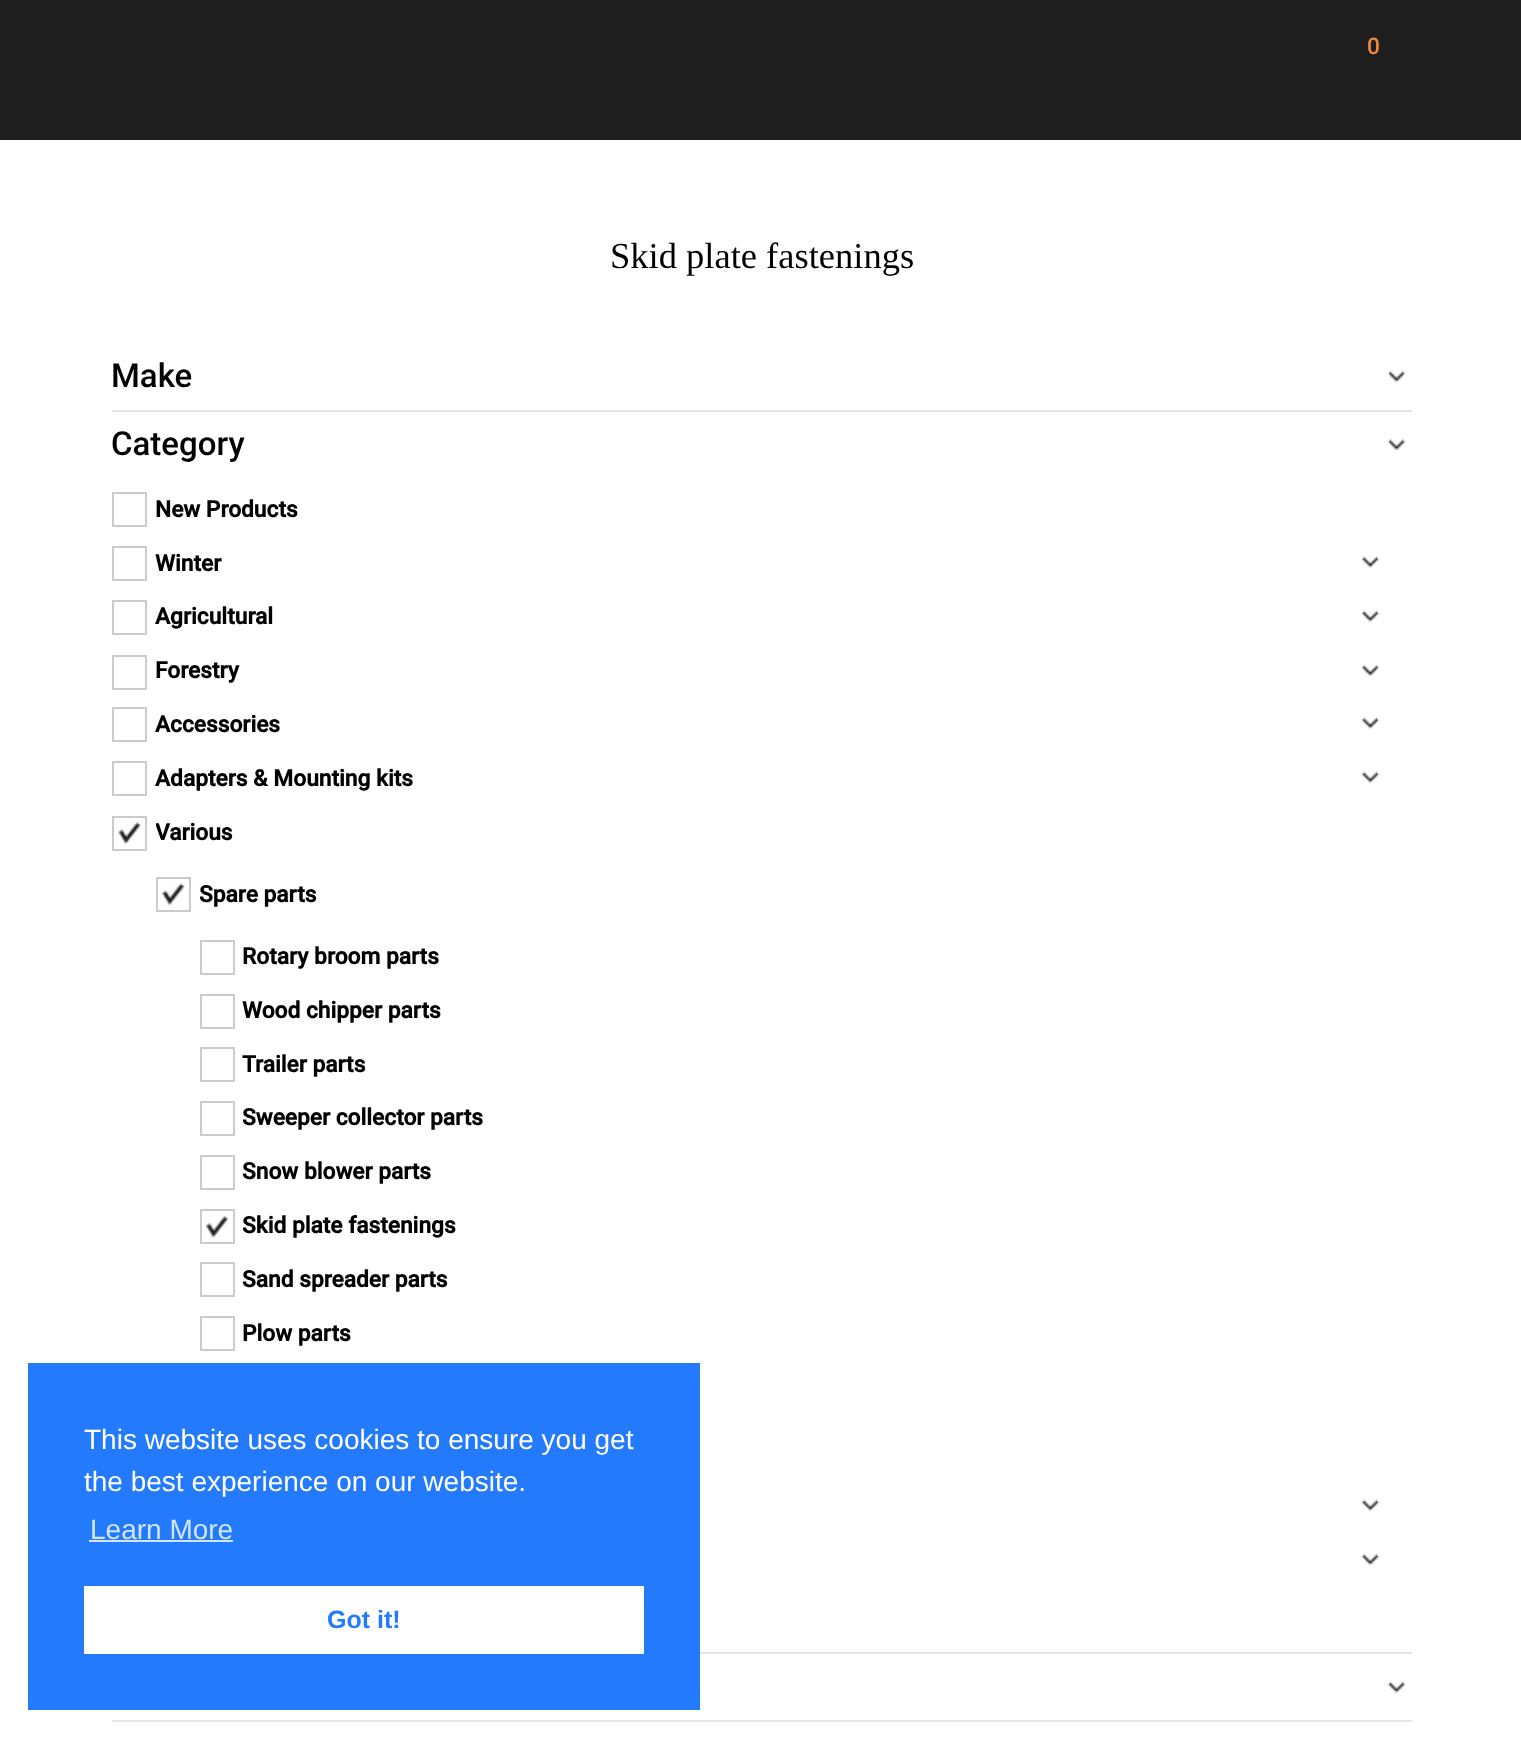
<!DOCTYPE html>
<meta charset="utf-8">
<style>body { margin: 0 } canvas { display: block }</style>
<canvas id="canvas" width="1521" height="1737"></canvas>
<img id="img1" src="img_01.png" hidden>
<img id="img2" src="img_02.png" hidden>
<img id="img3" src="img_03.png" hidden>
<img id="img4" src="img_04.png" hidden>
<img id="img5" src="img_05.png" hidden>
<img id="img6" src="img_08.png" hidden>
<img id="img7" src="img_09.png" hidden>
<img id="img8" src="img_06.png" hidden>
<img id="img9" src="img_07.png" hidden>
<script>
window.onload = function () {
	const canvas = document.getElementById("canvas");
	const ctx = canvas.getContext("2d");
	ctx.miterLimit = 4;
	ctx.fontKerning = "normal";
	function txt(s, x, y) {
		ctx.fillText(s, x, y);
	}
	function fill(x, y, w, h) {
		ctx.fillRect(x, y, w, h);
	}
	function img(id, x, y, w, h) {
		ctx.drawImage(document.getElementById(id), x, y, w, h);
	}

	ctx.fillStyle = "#1E1E1E";
	fill(0, 0, 1521, 1737);
	ctx.fillStyle = "#FFFFFF";
	fill(0, 140, 1521, 1597);
	img("img1", 1387, 370, 19, 12);
	ctx.fillStyle = "#E5E5E5";
	fill(112, 410, 1300, 2);
	img("img2", 1387, 438, 19, 13);
	fill(700, 1652, 712, 2);
	ctx.strokeStyle = "#CBCBCB";
	ctx.lineWidth = 2;
	ctx.strokeRect(113, 493, 33, 33);
	ctx.strokeRect(113, 547, 33, 33);
	img("img3", 1361, 556, 19, 12);
	ctx.strokeRect(113, 601, 33, 33);
	img("img4", 1361, 610, 19, 12);
	ctx.strokeRect(113, 656, 33, 33);
	img("img5", 1361, 664, 19, 12);
	ctx.strokeRect(113, 708, 33, 33);
	img("img3", 1361, 717, 19, 12);
	ctx.strokeRect(113, 762, 33, 33);
	img("img4", 1361, 771, 19, 12);
	ctx.strokeRect(201, 941, 33, 33);
	ctx.strokeRect(201, 995, 33, 33);
	ctx.strokeRect(201, 1048, 33, 33);
	ctx.strokeRect(201, 1102, 33, 33);
	ctx.strokeRect(201, 1156, 33, 33);
	img("img6", 206, 1215, 22, 23);
	ctx.strokeRect(201, 1210, 33, 33);
	ctx.strokeRect(201, 1263, 33, 33);
	ctx.strokeRect(201, 1317, 33, 33);
	img("img4", 1361, 1499, 19, 12);
	img("img5", 1361, 1553, 19, 12);
	img("img7", 1387, 1681, 19, 12);
	fill(112, 1720, 1300, 2);
	ctx.fillStyle = "#237AFC";
	fill(28, 1363, 672, 347);
	ctx.fillStyle = "#D3E4FE";
	fill(89, 1540, 144, 2);
	ctx.fillStyle = "#FFFFFF";
	fill(84, 1586, 560, 68);
	ctx.font = "500 22.75px Roboto";
	ctx.fillStyle = "#ED893B";
	txt("0", 1367, 54);
	ctx.font = "36.5px Liberation Serif";
	ctx.fillStyle = "#010101";
	txt("Skid plate fastenings", 610, 268);
	ctx.font = "500 33px Roboto";
	txt("Make", 111, 387);
	txt("Category", 111, 455);
	ctx.font = "bold 22.75px Roboto";
	txt("New Products", 155, 517);
	txt("Winter", 155, 571);
	txt("Agricultural", 155, 624);
	txt("Forestry", 155, 678);
	txt("Accessories", 155, 732);
	txt("Adapters & Mounting kits", 155, 786);
	txt("Various", 155, 840);
	ctx.save();
	ctx.beginPath();
	ctx.rect(112, 478, 1300, 1174);
	ctx.clip();
	ctx.strokeStyle = "#FFFFFF";
	ctx.lineWidth = 9;
	ctx.strokeRect(107.5, 811.5, 44, 43);
	ctx.restore();
	img("img8", 118, 822, 23, 22);
	ctx.strokeRect(113, 817, 33, 33);
	txt("Spare parts", 199, 902);
	ctx.strokeStyle = "#FFFFFF";
	ctx.lineWidth = 9;
	ctx.strokeRect(151.5, 872.5, 44, 44);
	img("img9", 162, 883, 23, 23);
	ctx.strokeStyle = "#CBCBCB";
	ctx.lineWidth = 2;
	ctx.strokeRect(157, 878, 33, 33);
	txt("Rotary broom parts", 242, 964);
	txt("Wood chipper parts", 242, 1018);
	txt("Trailer parts", 242, 1072);
	txt("Sweeper collector parts", 242, 1125);
	txt("Snow blower parts", 242, 1179);
	txt("Skid plate fastenings", 242, 1233);
	txt("Sand spreader parts", 242, 1287);
	txt("Plow parts", 242, 1341);
	ctx.font = "28px Liberation Sans";
	ctx.fillStyle = "#FFFFFF";
	txt("This website uses cookies to ensure you get", 84, 1449);
	txt("the best experience on our website.", 84, 1491);
	ctx.fillStyle = "#D3E4FE";
	txt("Learn More", 90, 1539);
	ctx.font = "bold 25px Liberation Sans";
	ctx.fillStyle = "#237AFC";
	txt("Got it!", 327, 1628);
};
</script>
